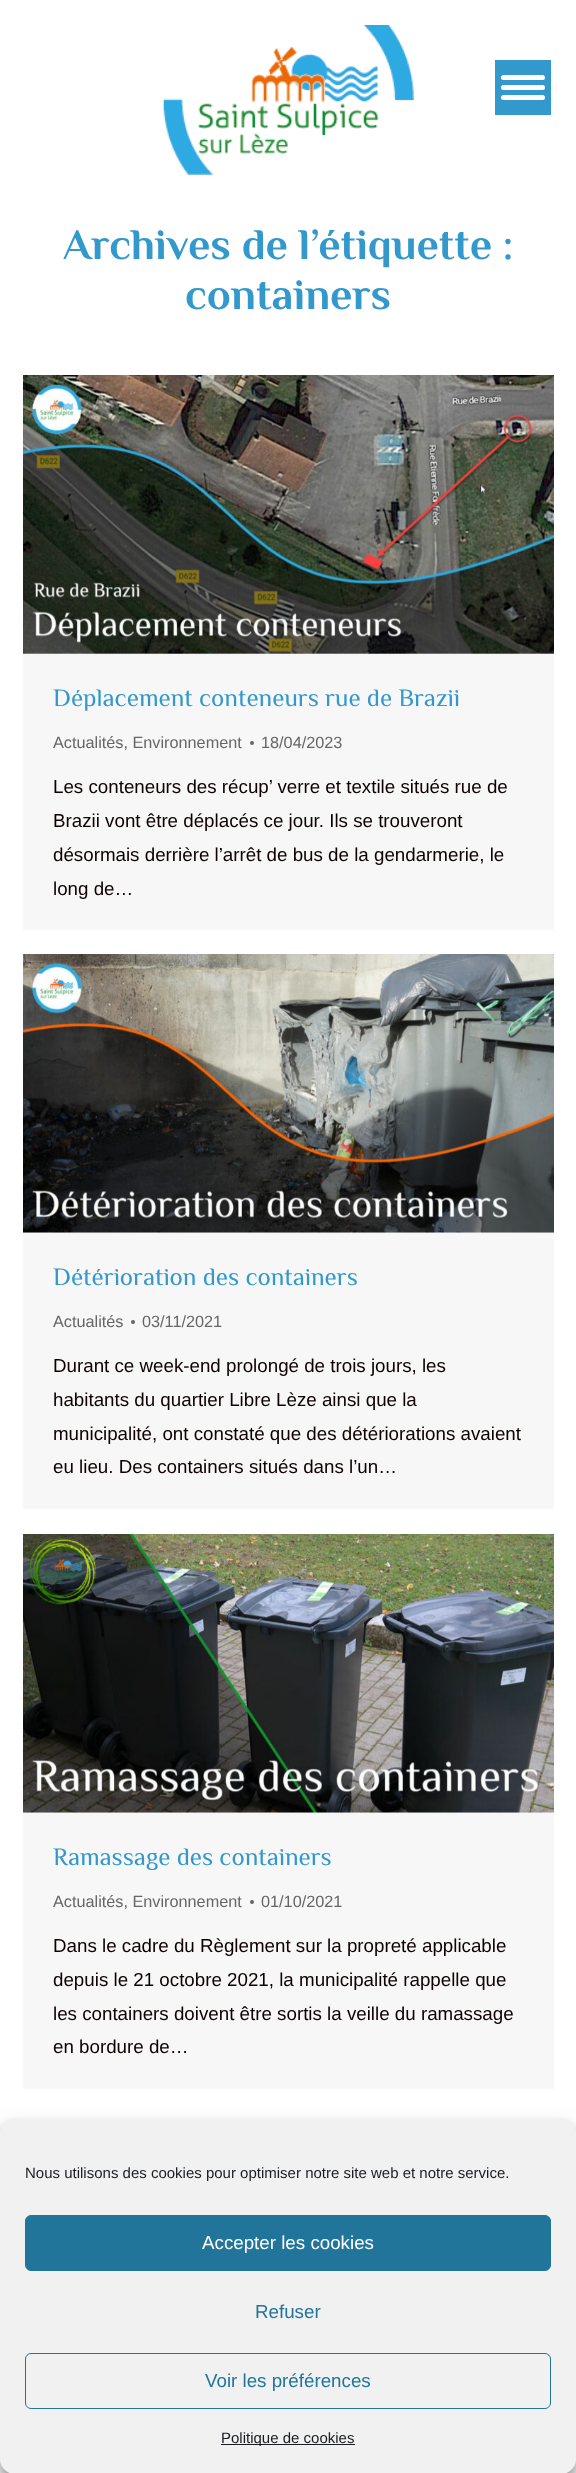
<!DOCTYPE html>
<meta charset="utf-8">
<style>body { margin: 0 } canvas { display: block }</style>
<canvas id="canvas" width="576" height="2473"></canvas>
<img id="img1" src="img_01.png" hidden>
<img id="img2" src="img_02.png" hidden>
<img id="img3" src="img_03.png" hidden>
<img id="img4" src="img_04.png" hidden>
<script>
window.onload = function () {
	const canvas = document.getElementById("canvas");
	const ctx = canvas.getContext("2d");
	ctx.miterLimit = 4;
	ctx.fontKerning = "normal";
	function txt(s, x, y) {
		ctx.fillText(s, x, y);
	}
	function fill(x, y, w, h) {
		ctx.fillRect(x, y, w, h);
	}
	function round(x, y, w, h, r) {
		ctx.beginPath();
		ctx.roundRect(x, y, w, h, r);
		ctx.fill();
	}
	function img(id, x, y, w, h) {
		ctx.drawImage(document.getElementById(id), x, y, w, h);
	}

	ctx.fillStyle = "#F7F7F7";
	fill(0, 0, 576, 2473);
	ctx.fillStyle = "#FFFFFF";
	fill(0, 0, 576, 2133);
	img("img1", 163, 25, 251, 150);
	ctx.fillStyle = "#3399CC";
	fill(495, 60, 56, 55);
	ctx.fillStyle = "#FFFFFF";
	round(501, 75, 44, 5, 2.5);
	round(501, 85, 44, 5, 2.5);
	round(501, 95, 44, 5, 2.5);
	ctx.fillStyle = "#F7F7F7";
	fill(23, 653, 531, 277);
	img("img2", 23, 375, 531, 279);
	ctx.fillStyle = "#666666";
	ctx.beginPath();
	ctx.arc(252, 743, 2, 0, Math.PI * 2);
	ctx.fill();
	ctx.fillStyle = "#F7F7F7";
	fill(23, 1232, 531, 277);
	img("img3", 23, 954, 531, 279);
	ctx.fillStyle = "#666666";
	ctx.beginPath();
	ctx.arc(133, 1322, 2, 0, Math.PI * 2);
	ctx.fill();
	ctx.fillStyle = "#F7F7F7";
	fill(23, 1812, 531, 277);
	img("img4", 23, 1534, 531, 279);
	ctx.fillStyle = "#666666";
	ctx.beginPath();
	ctx.arc(252, 1902, 2, 0, Math.PI * 2);
	ctx.fill();
	ctx.fillStyle = "rgba(0, 0, 0, 0.23)";
	ctx.filter = "blur(4px)";
	ctx.beginPath();
	ctx.roundRect(0, 2125, 576, 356, 15);
	ctx.fill();
	ctx.filter = "none";
	ctx.fillStyle = "rgba(0, 0, 0, 0.19)";
	ctx.filter = "blur(12.5px)";
	ctx.beginPath();
	ctx.roundRect(0, 2130, 576, 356, 15);
	ctx.fill();
	ctx.filter = "none";
	ctx.fillStyle = "#808080";
	ctx.filter = "blur(3px)";
	ctx.beginPath();
	ctx.roundRect(489, 2381, 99, 75, 2.5);
	ctx.fill();
	ctx.filter = "none";
	ctx.fillStyle = "#F1F1F1";
	round(0, 2118, 576, 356, 15);
	ctx.fillStyle = "#21759B";
	ctx.beginPath();
	ctx.roundRect(25.5, 2215.5, 525, 55, 5.5);
	ctx.fill();
	ctx.strokeStyle = "#21759B";
	ctx.stroke();
	ctx.beginPath();
	ctx.roundRect(25.5, 2353.5, 525, 55, 5.5);
	ctx.stroke();
	ctx.fillStyle = "#191E23";
	fill(221, 2444, 134, 1);
	ctx.font = "bold 43.75px Philosopher";
	ctx.fillStyle = "#3399CC";
	txt("Archives de l’étiquette :", 63, 259);
	txt("containers", 185, 309);
	ctx.font = "25px Philosopher";
	txt("Déplacement conteneurs rue de Brazii", 53, 706);
	ctx.font = "16.25px Liberation Sans";
	ctx.fillStyle = "#666666";
	txt("Actualités, Environnement", 53, 748);
	txt("18/04/2023", 261, 748);
	ctx.font = "18.75px Liberation Sans";
	ctx.fillStyle = "#0C0000";
	txt("Les conteneurs des récup’ verre et textile situés rue de", 53, 793);
	txt("Brazii vont être déplacés ce jour. Ils se trouveront", 53, 827);
	txt("désormais derrière l’arrêt de bus de la gendarmerie, le", 53, 861);
	txt("long de…", 53, 895);
	ctx.font = "25px Philosopher";
	ctx.fillStyle = "#3399CC";
	txt("Détérioration des containers", 53, 1285);
	ctx.font = "16.25px Liberation Sans";
	ctx.fillStyle = "#666666";
	txt("Actualités", 53, 1327);
	txt("03/11/2021", 142, 1327);
	ctx.font = "18.75px Liberation Sans";
	ctx.fillStyle = "#0C0000";
	txt("Durant ce week-end prolongé de trois jours, les", 53, 1372);
	txt("habitants du quartier Libre Lèze ainsi que la", 53, 1406);
	txt("municipalité, ont constaté que des détériorations avaient", 53, 1440);
	txt("eu lieu. Des containers situés dans l’un…", 53, 1473);
	ctx.font = "25px Philosopher";
	ctx.fillStyle = "#3399CC";
	txt("Ramassage des containers", 53, 1865);
	ctx.font = "16.25px Liberation Sans";
	ctx.fillStyle = "#666666";
	txt("Actualités, Environnement", 53, 1907);
	txt("01/10/2021", 261, 1907);
	ctx.font = "18.75px Liberation Sans";
	ctx.fillStyle = "#0C0000";
	txt("Dans le cadre du Règlement sur la propreté applicable", 53, 1952);
	txt("depuis le 21 octobre 2021, la municipalité rappelle que", 53, 1986);
	txt("les containers doivent être sortis la veille du ramassage", 53, 2020);
	txt("en bordure de…", 53, 2053);
	ctx.font = "15px Liberation Sans";
	ctx.fillStyle = "#191E23";
	txt("Nous utilisons des cookies pour optimiser notre site web et notre service.", 25, 2178);
	ctx.font = "18.75px Liberation Sans";
	ctx.fillStyle = "#FFFFFF";
	txt("Accepter les cookies", 202, 2249);
	ctx.fillStyle = "#21759B";
	txt("Refuser", 255, 2318);
	txt("Voir les préférences", 205, 2387);
	ctx.font = "15px Liberation Sans";
	ctx.fillStyle = "#191E23";
	txt("Politique de cookies", 221, 2443);
};
</script>
